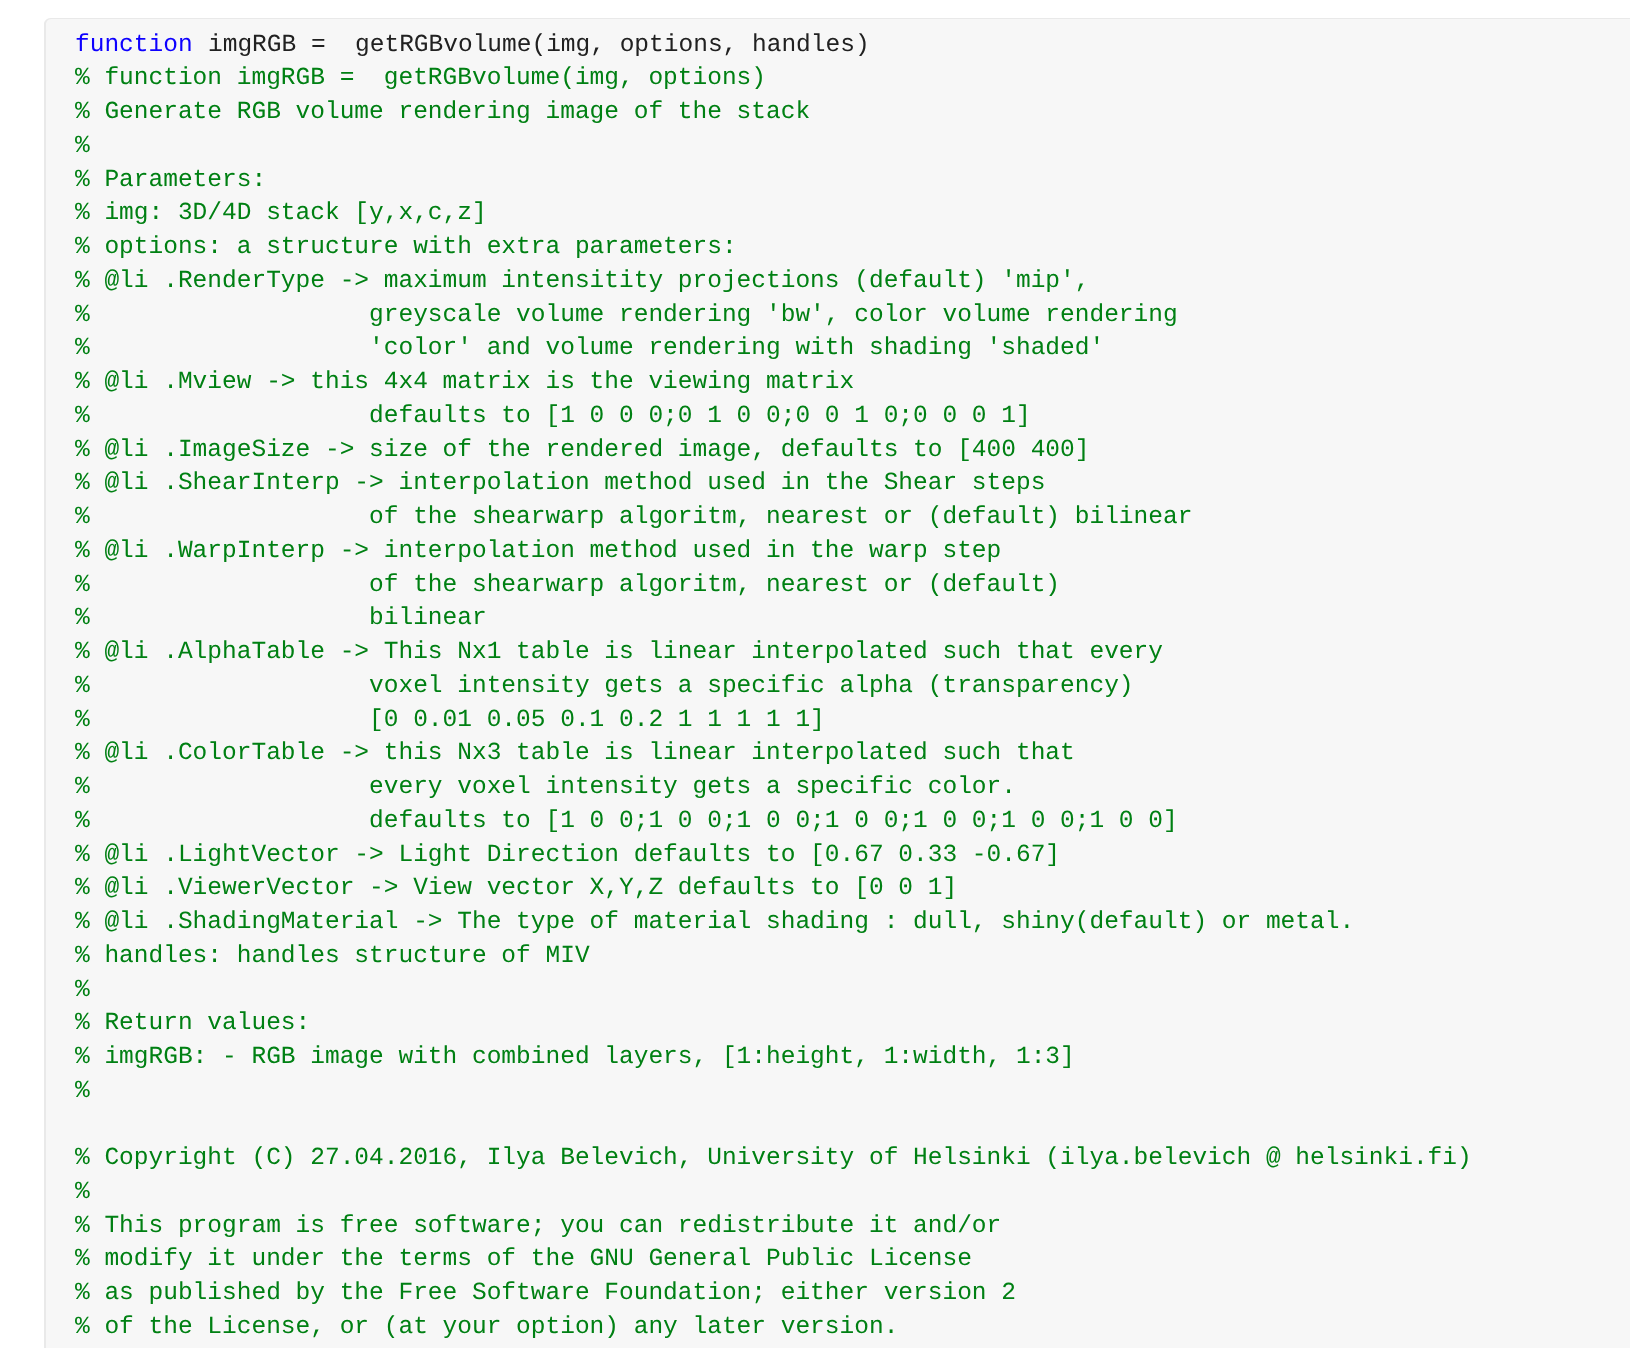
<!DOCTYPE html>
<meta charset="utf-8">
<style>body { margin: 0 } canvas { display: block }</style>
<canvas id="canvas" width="1630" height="1348"></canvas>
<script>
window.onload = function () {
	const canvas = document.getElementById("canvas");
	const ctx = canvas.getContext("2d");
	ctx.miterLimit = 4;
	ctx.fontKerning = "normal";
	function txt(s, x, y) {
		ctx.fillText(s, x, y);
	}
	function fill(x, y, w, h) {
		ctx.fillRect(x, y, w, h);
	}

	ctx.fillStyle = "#FFFFFF";
	fill(0, 0, 1630, 1348);
	ctx.fillStyle = "#F7F7F7";
	ctx.beginPath();
	ctx.moveTo(51, 18);
	ctx.lineTo(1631, 18);
	ctx.lineTo(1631, 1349);
	ctx.lineTo(44, 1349);
	ctx.lineTo(44, 25);
	ctx.bezierCurveTo(44, 21, 47, 18, 51, 18);
	ctx.closePath();
	ctx.fill();
	ctx.fillStyle = "#E9E9E9";
	ctx.beginPath();
	ctx.moveTo(51, 18);
	ctx.lineTo(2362, 18);
	ctx.bezierCurveTo(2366, 18, 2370, 21, 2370, 24);
	ctx.lineTo(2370, 61);
	ctx.lineTo(44, 61);
	ctx.lineTo(44, 24);
	ctx.bezierCurveTo(44, 21, 47, 18, 51, 18);
	ctx.closePath();
	ctx.moveTo(51, 19);
	ctx.lineTo(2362, 19);
	ctx.bezierCurveTo(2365, 19, 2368, 22, 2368, 24);
	ctx.lineTo(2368, 61);
	ctx.lineTo(46, 61);
	ctx.lineTo(46, 24);
	ctx.bezierCurveTo(46, 22, 48, 19, 51, 19);
	ctx.closePath();
	ctx.fill("evenodd");
	fill(44, 61, 2, 1287);
	ctx.font = "24.5px Liberation Mono";
	ctx.fillStyle = "#0E00FF";
	txt("function", 75, 51);
	ctx.fillStyle = "#212121";
	txt("imgRGB =  getRGBvolume(img, options, handles)", 208, 51);
	ctx.fillStyle = "#008013";
	txt("% function imgRGB =  getRGBvolume(img, options)", 75, 84);
	txt("% Generate RGB volume rendering image of the stack", 75, 118);
	txt("%", 75, 152);
	txt("% Parameters:", 75, 186);
	txt("% img: 3D/4D stack [y,x,c,z]", 75, 219);
	txt("% options: a structure with extra parameters:", 75, 253);
	txt("% @li .RenderType -> maximum intensitity projections (default) 'mip',", 75, 287);
	txt("%                   greyscale volume rendering 'bw', color volume rendering", 75, 321);
	txt("%                   'color' and volume rendering with shading 'shaded'", 75, 354);
	txt("% @li .Mview -> this 4x4 matrix is the viewing matrix", 75, 388);
	txt("%                   defaults to [1 0 0 0;0 1 0 0;0 0 1 0;0 0 0 1]", 75, 422);
	txt("% @li .ImageSize -> size of the rendered image, defaults to [400 400]", 75, 456);
	txt("% @li .ShearInterp -> interpolation method used in the Shear steps", 75, 489);
	txt("%                   of the shearwarp algoritm, nearest or (default) bilinear", 75, 523);
	txt("% @li .WarpInterp -> interpolation method used in the warp step", 75, 557);
	txt("%                   of the shearwarp algoritm, nearest or (default)", 75, 591);
	txt("%                   bilinear", 75, 624);
	txt("% @li .AlphaTable -> This Nx1 table is linear interpolated such that every", 75, 658);
	txt("%                   voxel intensity gets a specific alpha (transparency)", 75, 692);
	txt("%                   [0 0.01 0.05 0.1 0.2 1 1 1 1 1]", 75, 726);
	txt("% @li .ColorTable -> this Nx3 table is linear interpolated such that", 75, 759);
	txt("%                   every voxel intensity gets a specific color.", 75, 793);
	txt("%                   defaults to [1 0 0;1 0 0;1 0 0;1 0 0;1 0 0;1 0 0;1 0 0]", 75, 827);
	txt("% @li .LightVector -> Light Direction defaults to [0.67 0.33 -0.67]", 75, 861);
	txt("% @li .ViewerVector -> View vector X,Y,Z defaults to [0 0 1]", 75, 894);
	txt("% @li .ShadingMaterial -> The type of material shading : dull, shiny(default) or metal.", 75, 928);
	txt("% handles: handles structure of MIV", 75, 962);
	txt("%", 75, 996);
	txt("% Return values:", 75, 1029);
	txt("% imgRGB: - RGB image with combined layers, [1:height, 1:width, 1:3]", 75, 1063);
	txt("%", 75, 1097);
	txt("% Copyright (C) 27.04.2016, Ilya Belevich, University of Helsinki (ilya.belevich @ helsinki.fi)", 75, 1164);
	txt("%", 75, 1198);
	txt("% This program is free software; you can redistribute it and/or", 75, 1232);
	txt("% modify it under the terms of the GNU General Public License", 75, 1265);
	txt("% as published by the Free Software Foundation; either version 2", 75, 1299);
	txt("% of the License, or (at your option) any later version.", 75, 1333);
};
</script>
